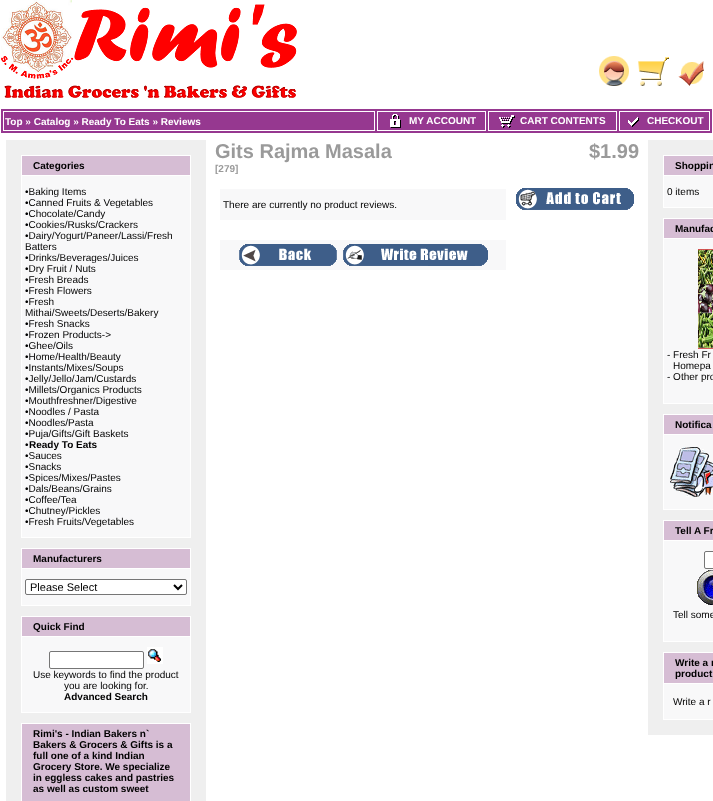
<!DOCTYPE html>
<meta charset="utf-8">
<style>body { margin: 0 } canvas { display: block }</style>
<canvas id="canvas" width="713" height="801"></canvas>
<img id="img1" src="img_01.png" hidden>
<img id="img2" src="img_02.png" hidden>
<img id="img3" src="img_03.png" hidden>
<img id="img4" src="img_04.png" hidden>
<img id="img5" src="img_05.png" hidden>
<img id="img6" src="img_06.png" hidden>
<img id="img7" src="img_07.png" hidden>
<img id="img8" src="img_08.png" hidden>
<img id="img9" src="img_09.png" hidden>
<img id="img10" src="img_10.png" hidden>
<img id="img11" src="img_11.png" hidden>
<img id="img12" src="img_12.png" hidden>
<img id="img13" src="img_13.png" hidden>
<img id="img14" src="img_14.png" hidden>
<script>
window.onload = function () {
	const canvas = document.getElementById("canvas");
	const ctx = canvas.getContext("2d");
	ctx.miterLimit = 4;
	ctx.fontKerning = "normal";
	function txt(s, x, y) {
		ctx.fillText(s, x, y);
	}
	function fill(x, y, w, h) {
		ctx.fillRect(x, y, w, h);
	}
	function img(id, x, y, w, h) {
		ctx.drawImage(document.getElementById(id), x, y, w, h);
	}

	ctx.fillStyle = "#FFFFFF";
	fill(0, 0, 713, 801);
	img("img1", 1, 0, 296, 98);
	img("img2", 599, 56, 30, 30);
	img("img3", 638, 57, 31, 29);
	img("img4", 678, 61, 26, 25);
	ctx.fillStyle = "#963890";
	fill(1, 109, 711, 24);
	ctx.strokeStyle = "#FFFFFF";
	ctx.strokeRect(3.5, 111.5, 371, 19);
	ctx.strokeRect(377.5, 111.5, 108, 19);
	img("img5", 390, 114, 11, 14);
	ctx.strokeRect(488.5, 111.5, 128, 19);
	img("img6", 499, 115, 16, 13);
	ctx.strokeRect(619.5, 111.5, 90, 19);
	img("img7", 628, 117, 11, 10);
	ctx.fillStyle = "#EFEFEF";
	fill(6, 140, 200, 661);
	ctx.fillStyle = "#D6BDD4";
	fill(22, 156, 168, 19);
	ctx.fillStyle = "#FFFFFF";
	fill(21, 155, 170, 1);
	fill(21, 155, 1, 20);
	fill(190, 155, 1, 20);
	fill(21, 175, 170, 363);
	ctx.fillStyle = "#F8F8F9";
	fill(22, 176, 168, 361);
	ctx.fillStyle = "#D6BDD4";
	fill(22, 549, 168, 19);
	ctx.fillStyle = "#FFFFFF";
	fill(21, 548, 170, 1);
	fill(21, 548, 1, 20);
	fill(190, 548, 1, 20);
	fill(21, 568, 170, 38);
	ctx.fillStyle = "#F8F8F9";
	fill(22, 569, 168, 36);
	ctx.fillStyle = "#FFFFFF";
	ctx.beginPath();
	ctx.roundRect(25.5, 579.5, 161, 15, 1.5);
	ctx.fill();
	ctx.strokeStyle = "#767676";
	ctx.stroke();
	ctx.beginPath();
	ctx.moveTo(174, 585);
	ctx.lineTo(178, 589);
	ctx.lineTo(182, 585);
	ctx.strokeStyle = "#000000";
	ctx.lineWidth = 2;
	ctx.stroke();
	ctx.fillStyle = "#D6BDD4";
	fill(22, 617, 168, 19);
	ctx.fillStyle = "#FFFFFF";
	fill(21, 616, 170, 1);
	fill(21, 616, 1, 20);
	fill(190, 616, 1, 20);
	fill(21, 636, 170, 77);
	ctx.fillStyle = "#F8F8F9";
	fill(22, 637, 168, 75);
	ctx.fillStyle = "#FFFFFF";
	ctx.beginPath();
	ctx.roundRect(49.5, 651.5, 94, 17, 1.5);
	ctx.fill();
	ctx.strokeStyle = "#767676";
	ctx.lineWidth = 1;
	ctx.stroke();
	img("img8", 147, 647, 16, 17);
	ctx.fillStyle = "#D6BDD4";
	fill(22, 724, 168, 77);
	ctx.fillStyle = "#FFFFFF";
	fill(21, 723, 170, 1);
	fill(21, 723, 1, 78);
	fill(190, 723, 1, 78);
	ctx.fillStyle = "#F8F8F9";
	fill(220, 189, 286, 31);
	fill(220, 240, 286, 30);
	img("img9", 239, 244, 98, 22);
	img("img10", 343, 244, 145, 22);
	img("img11", 516, 188, 118, 22);
	ctx.fillStyle = "#EFEFEF";
	fill(648, 140, 65, 595);
	ctx.fillStyle = "#D6BDD4";
	fill(664, 156, 49, 19);
	ctx.fillStyle = "#FFFFFF";
	fill(663, 155, 50, 1);
	fill(663, 155, 1, 20);
	fill(663, 175, 50, 33);
	ctx.fillStyle = "#F8F8F9";
	fill(664, 176, 49, 31);
	ctx.fillStyle = "#D6BDD4";
	fill(664, 219, 49, 19);
	ctx.fillStyle = "#FFFFFF";
	fill(663, 218, 50, 1);
	fill(663, 218, 1, 20);
	fill(663, 238, 50, 166);
	ctx.fillStyle = "#F8F8F9";
	fill(664, 239, 49, 164);
	img("img12", 698, 249, 15, 100);
	ctx.fillStyle = "#D6BDD4";
	fill(664, 415, 49, 19);
	ctx.fillStyle = "#FFFFFF";
	fill(663, 414, 50, 1);
	fill(663, 414, 1, 20);
	fill(663, 434, 50, 76);
	ctx.fillStyle = "#F8F8F9";
	fill(664, 435, 49, 74);
	img("img13", 670, 447, 43, 50);
	ctx.fillStyle = "#D6BDD4";
	fill(664, 521, 49, 19);
	ctx.fillStyle = "#FFFFFF";
	fill(663, 520, 50, 1);
	fill(663, 520, 1, 20);
	fill(663, 540, 50, 102);
	ctx.fillStyle = "#F8F8F9";
	fill(664, 541, 49, 100);
	ctx.fillStyle = "#FFFFFF";
	ctx.beginPath();
	ctx.roundRect(704.5, 551.5, 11, 17, 1.5);
	ctx.fill();
	ctx.stroke();
	img("img14", 697, 570, 16, 35);
	ctx.fillStyle = "#D6BDD4";
	fill(664, 653, 49, 30);
	ctx.fillStyle = "#FFFFFF";
	fill(663, 652, 50, 1);
	fill(663, 652, 1, 31);
	fill(663, 683, 50, 37);
	ctx.fillStyle = "#F8F8F9";
	fill(664, 684, 49, 35);
	ctx.font = "bold 10px Liberation Sans";
	ctx.fillStyle = "#FFFFFF";
	txt("Top » Catalog » Ready To Eats » Reviews", 5, 125);
	txt("MY ACCOUNT", 409, 124);
	txt("CART CONTENTS", 520, 124);
	txt("CHECKOUT", 647, 124);
	ctx.fillStyle = "#000000";
	txt("Categories", 33, 169);
	ctx.font = "10px Liberation Sans";
	txt("•Baking Items", 25, 195);
	txt("•Canned Fruits & Vegetables", 25, 206);
	txt("•Chocolate/Candy", 25, 217);
	txt("•Cookies/Rusks/Crackers", 25, 228);
	txt("•Dairy/Yogurt/Paneer/Lassi/Fresh", 25, 239);
	txt("Batters", 25, 250);
	txt("•Drinks/Beverages/Juices", 25, 261);
	txt("•Dry Fruit / Nuts", 25, 272);
	txt("•Fresh Breads", 25, 283);
	txt("•Fresh Flowers", 25, 294);
	txt("•Fresh", 25, 305);
	txt("Mithai/Sweets/Deserts/Bakery", 25, 316);
	txt("•Fresh Snacks", 25, 327);
	txt("•Frozen Products->", 25, 338);
	txt("•Ghee/Oils", 25, 349);
	txt("•Home/Health/Beauty", 25, 360);
	txt("•Instants/Mixes/Soups", 25, 371);
	txt("•Jelly/Jello/Jam/Custards", 25, 382);
	txt("•Millets/Organics Products", 25, 393);
	txt("•Mouthfreshner/Digestive", 25, 404);
	txt("•Noodles / Pasta", 25, 415);
	txt("•Noodles/Pasta", 25, 426);
	txt("•Puja/Gifts/Gift Baskets", 25, 437);
	txt("•", 25, 448);
	ctx.font = "bold 10px Liberation Sans";
	txt("Ready To Eats", 29, 448);
	ctx.font = "10px Liberation Sans";
	txt("•Sauces", 25, 459);
	txt("•Snacks", 25, 470);
	txt("•Spices/Mixes/Pastes", 25, 481);
	txt("•Dals/Beans/Grains", 25, 492);
	txt("•Coffee/Tea", 25, 503);
	txt("•Chutney/Pickles", 25, 514);
	txt("•Fresh Fruits/Vegetables", 25, 525);
	ctx.font = "bold 10px Liberation Sans";
	txt("Manufacturers", 33, 562);
	ctx.font = "11px Liberation Sans";
	txt("Please Select", 30, 591);
	ctx.font = "bold 10px Liberation Sans";
	txt("Quick Find", 33, 630);
	ctx.font = "10px Liberation Sans";
	txt("Use keywords to find the product", 33, 678);
	txt("you are looking for.", 64, 689);
	ctx.font = "bold 10px Liberation Sans";
	txt("Advanced Search", 64, 700);
	txt("Rimi's - Indian Bakers n`", 33, 737);
	txt("Bakers & Grocers & Gifts is a", 33, 748);
	txt("full one of a kind Indian", 33, 759);
	txt("Grocery Store. We specialize", 33, 770);
	txt("in eggless cakes and pastries", 33, 781);
	txt("as well as custom sweet", 33, 792);
	ctx.font = "bold 20px Liberation Sans";
	ctx.fillStyle = "#9A9A9A";
	txt("Gits Rajma Masala", 215, 158);
	ctx.font = "bold 10px Liberation Sans";
	txt("[279]", 215, 172);
	ctx.font = "bold 20px Liberation Sans";
	txt("$1.99", 589, 158);
	ctx.font = "10px Liberation Sans";
	ctx.fillStyle = "#000000";
	txt("There are currently no product reviews.", 223, 208);
	ctx.font = "bold 10px Liberation Sans";
	txt("Shoppin", 675, 169);
	ctx.font = "10px Liberation Sans";
	txt("0 items", 667, 195);
	ctx.font = "bold 10px Liberation Sans";
	txt("Manufac", 675, 232);
	ctx.font = "10px Liberation Sans";
	txt("- Fresh Fr", 667, 358);
	txt("Homepa", 673, 369);
	txt("- Other pro", 667, 380);
	ctx.font = "bold 10px Liberation Sans";
	txt("Notifica", 675, 428);
	txt("Tell A Fr", 675, 534);
	ctx.font = "10px Liberation Sans";
	txt("Tell some", 673, 618);
	ctx.font = "bold 10px Liberation Sans";
	txt("Write a r", 675, 666);
	txt("product", 675, 677);
	ctx.font = "10px Liberation Sans";
	txt("Write a r", 673, 705);
};
</script>
